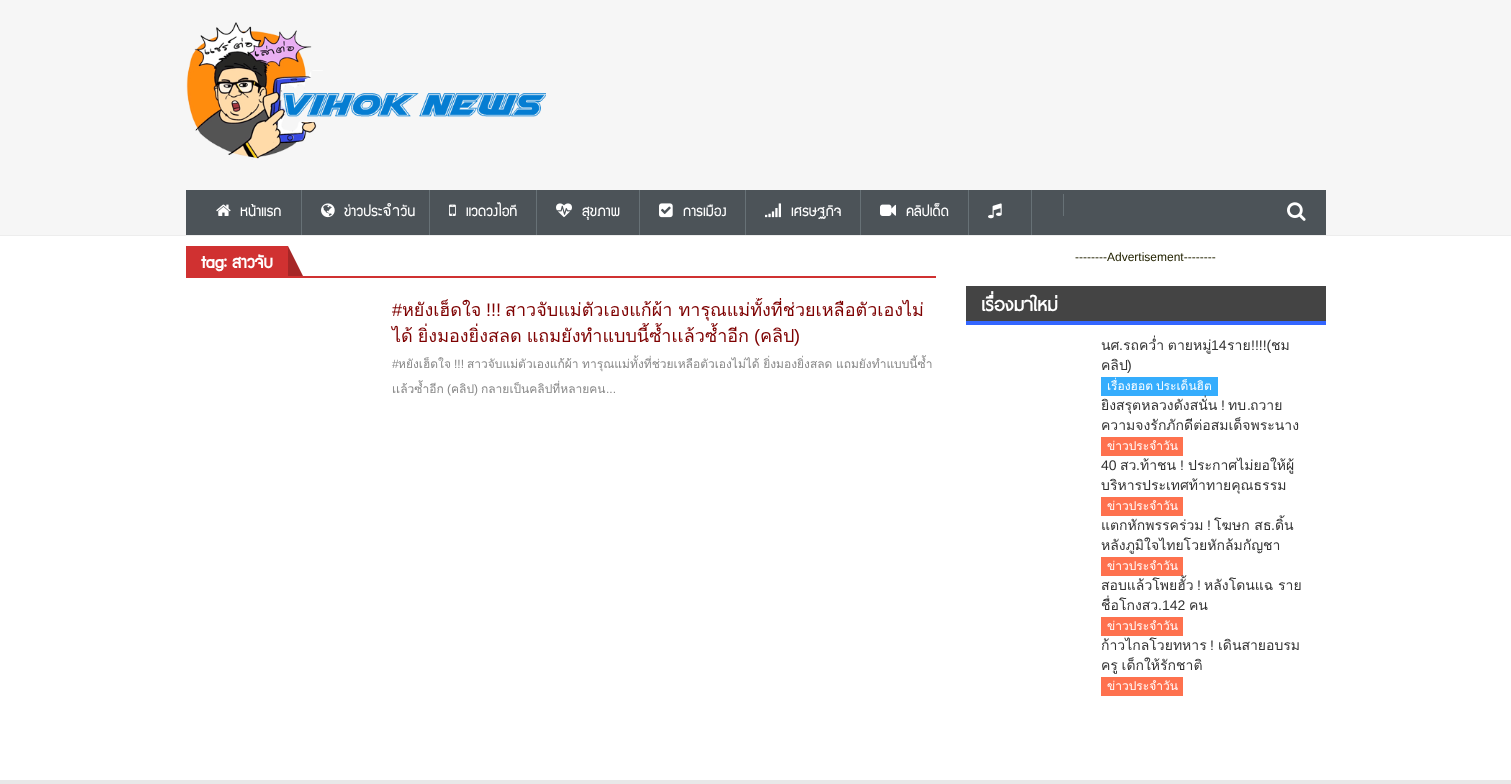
<!DOCTYPE html>
<meta charset="utf-8">
<style>body { margin: 0 } canvas { display: block }</style>
<canvas id="canvas" width="1511" height="784"></canvas>
<img id="img1" src="img_01.png" hidden>
<img id="img2" src="img_02.png" hidden>
<img id="img3" src="img_03.png" hidden>
<img id="img4" src="img_04.png" hidden>
<img id="img5" src="img_05.png" hidden>
<img id="img6" src="img_06.png" hidden>
<img id="img7" src="img_07.png" hidden>
<img id="img8" src="img_08.png" hidden>
<img id="img9" src="img_09.png" hidden>
<img id="img10" src="img_10.png" hidden>
<script>
window.onload = function () {
	const canvas = document.getElementById("canvas");
	const ctx = canvas.getContext("2d");
	ctx.miterLimit = 4;
	ctx.fontKerning = "normal";
	function txt(s, x, y) {
		ctx.fillText(s, x, y);
	}
	function fill(x, y, w, h) {
		ctx.fillRect(x, y, w, h);
	}
	function img(id, x, y, w, h) {
		ctx.drawImage(document.getElementById(id), x, y, w, h);
	}

	ctx.fillStyle = "#FFFFFF";
	fill(0, 0, 1511, 784);
	ctx.fillStyle = "#F6F6F6";
	fill(0, 0, 1511, 235);
	ctx.fillStyle = "#EDEDED";
	fill(0, 235, 1511, 1);
	img("img1", 186, 22, 360, 138);
	ctx.fillStyle = "#4C5358";
	fill(186, 190, 1140, 45);
	ctx.fillStyle = "#677176";
	fill(301, 190, 1, 45);
	img("img2", 216, 204, 15, 12);
	fill(429, 190, 1, 45);
	img("img3", 321, 203, 14, 15);
	fill(536, 190, 1, 45);
	img("img4", 449, 204, 7, 12);
	fill(639, 190, 1, 45);
	img("img5", 556, 203, 16, 15);
	fill(745, 190, 1, 45);
	img("img6", 659, 203, 14, 15);
	fill(860, 190, 1, 45);
	img("img7", 765, 203, 16, 15);
	fill(968, 190, 1, 45);
	img("img8", 880, 204, 16, 12);
	fill(1031, 190, 1, 45);
	img("img9", 988, 203, 14, 16);
	fill(1063, 194, 1, 22);
	img("img10", 1287, 202, 19, 19);
	ctx.fillStyle = "#D03131";
	fill(186, 276, 750, 2);
	fill(186, 246, 102, 30);
	ctx.fillStyle = "#A62727";
	ctx.beginPath();
	ctx.moveTo(303, 276);
	ctx.lineTo(288, 276);
	ctx.lineTo(288, 246);
	ctx.closePath();
	ctx.fill();
	ctx.fillStyle = "#444444";
	fill(966, 286, 360, 35);
	ctx.fillStyle = "#3366FF";
	fill(966, 321, 360, 4);
	ctx.fillStyle = "#35ADFD";
	fill(1101, 377, 117, 19);
	ctx.fillStyle = "#FE714E";
	fill(1101, 437, 82, 19);
	fill(1101, 497, 82, 19);
	fill(1101, 557, 82, 19);
	fill(1101, 617, 82, 19);
	fill(1101, 677, 82, 19);
	ctx.fillStyle = "#E8E8E8";
	fill(0, 780, 1511, 4);
	ctx.font = "16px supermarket";
	ctx.fillStyle = "#FFFFFF";
	txt("หน้าแรก", 240, 216);
	txt("ข่าวประจำวัน", 344, 216);
	txt("แวดวงไอที", 466, 216);
	txt("สุขภาพ", 582, 216);
	txt("การเมือง", 683, 216);
	txt("เศรษฐกิจ", 791, 216);
	txt("คลิปเด็ด", 906, 216);
	ctx.font = "bold 18.5px supermarket";
	txt("tag: สาวจับ", 201, 268);
	ctx.font = "18px Liberation Sans";
	ctx.fillStyle = "#7E0101";
	txt("#", 392, 316);
	ctx.font = "18px Loma";
	txt("หยังเฮ็ดใจ", 402, 316);
	ctx.font = "18px Liberation Sans";
	txt("!!!", 486, 316);
	ctx.save();
	ctx.beginPath();
	ctx.rect(377, 298, 574, 103);
	ctx.clip();
	ctx.font = "18px Loma";
	txt("สาวจับแม่ตัวเองแก้ผ้า ทารุณแม่ทั้งที่ช่วยเหลือตัวเองไม่", 505, 316);
	ctx.restore();
	ctx.wordSpacing = "-1px";
	ctx.font = "18px Loma";
	txt("ได้ ยิ่งมองยิ่งสลด แถมยังทำแบบนี้ซ้ำเเล้วซ้ำอีก", 392, 342);
	ctx.wordSpacing = "0px";
	ctx.font = "18px Liberation Sans";
	txt("(", 754, 342);
	ctx.font = "18px Loma";
	txt("คลิป", 760, 342);
	ctx.font = "18px Liberation Sans";
	txt(")", 794, 342);
	ctx.font = "12px Liberation Sans";
	ctx.fillStyle = "#888888";
	txt("#", 392, 368);
	ctx.font = "12px Loma";
	txt("หยังเฮ็ดใจ", 398, 368);
	ctx.font = "12px Liberation Sans";
	txt("!!!", 454, 368);
	ctx.wordSpacing = "-0.5px";
	ctx.font = "12px Loma";
	txt("สาวจับแม่ตัวเองแก้ผ้า ทารุณแม่ทั้งที่ช่วยเหลือตัวเองไม่ได้ ยิ่งมองยิ่งสลด แถมยังทำแบบนี้ซ้ำ", 467, 368);
	ctx.wordSpacing = "0px";
	txt("เเล้วซ้ำอีก", 392, 393);
	ctx.font = "12px Liberation Sans";
	txt("(", 447, 393);
	ctx.font = "12px Loma";
	txt("คลิป", 451, 393);
	ctx.font = "12px Liberation Sans";
	txt(")", 474, 393);
	ctx.font = "12px Loma";
	txt("กลายเป็นคลิปที่หลายคน", 481, 393);
	ctx.font = "12px Liberation Sans";
	txt("...", 606, 393);
	ctx.fillStyle = "#222200";
	txt("--------Advertisement--------", 1075, 261);
	ctx.font = "bold 24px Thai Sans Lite";
	ctx.fillStyle = "#FFFFFF";
	txt("เรื่องมาใหม่", 981, 311);
	ctx.font = "14px Loma";
	ctx.fillStyle = "#333333";
	txt("นศ", 1101, 350);
	ctx.font = "14px Liberation Sans";
	txt(".", 1119, 350);
	ctx.wordSpacing = "-1px";
	ctx.font = "14px Loma";
	txt("รถคว่ำ ตายหมู่", 1123, 350);
	ctx.wordSpacing = "0px";
	ctx.font = "14px Liberation Sans";
	txt("14", 1211, 350);
	ctx.font = "14px Loma";
	txt("ราย", 1227, 350);
	ctx.font = "14px Liberation Sans";
	txt("!!!!(", 1251, 350);
	ctx.font = "14px Loma";
	txt("ชม", 1271, 350);
	txt("คลิป", 1101, 370);
	ctx.font = "14px Liberation Sans";
	txt(")", 1127, 370);
	ctx.wordSpacing = "-1px";
	ctx.font = "12px Loma";
	ctx.fillStyle = "#FFFFFF";
	txt("เรื่องฮอต ประเด็นฮิต", 1107, 390);
	ctx.save();
	ctx.beginPath();
	ctx.rect(1101, 395, 210, 40);
	ctx.clip();
	ctx.wordSpacing = "0px";
	ctx.font = "14px Loma";
	ctx.fillStyle = "#333333";
	txt("ยิงสรุตหลวงดังสนั่น", 1101, 410);
	ctx.restore();
	ctx.wordSpacing = "0px";
	ctx.font = "14px Liberation Sans";
	ctx.fillStyle = "#333333";
	txt("!", 1221, 410);
	ctx.font = "14px Loma";
	txt("ทบ", 1228, 410);
	ctx.font = "14px Liberation Sans";
	txt(".", 1247, 410);
	ctx.font = "14px Loma";
	txt("ถวาย", 1250, 410);
	txt("ความจงรักภักดีต่อสมเด็จพระนาง", 1101, 430);
	ctx.font = "12px Loma";
	ctx.fillStyle = "#FFFFFF";
	txt("ข่าวประจำวัน", 1107, 450);
	ctx.font = "14px Liberation Sans";
	ctx.fillStyle = "#333333";
	txt("40", 1101, 470);
	ctx.font = "14px Loma";
	txt("สว", 1120, 470);
	ctx.font = "14px Liberation Sans";
	txt("!", 1180, 470);
	ctx.font = "14px Loma";
	txt("ประกาศไม่ยอให้ผู้", 1188, 470);
	ctx.font = "14px Liberation Sans";
	txt(".", 1136, 470);
	ctx.font = "14px Loma";
	txt("ท้าชน", 1140, 470);
	txt("บริหารประเทศท้าทายคุณธรรม", 1101, 490);
	ctx.font = "12px Loma";
	ctx.fillStyle = "#FFFFFF";
	txt("ข่าวประจำวัน", 1107, 510);
	ctx.font = "14px Loma";
	ctx.fillStyle = "#333333";
	txt("แตกหักพรรคร่วม", 1101, 530);
	ctx.font = "14px Liberation Sans";
	txt("!", 1207, 530);
	ctx.font = "14px Loma";
	txt("โฆษก สธ", 1214, 530);
	ctx.font = "14px Liberation Sans";
	txt(".", 1271, 530);
	ctx.font = "14px Loma";
	txt("ดิ้น", 1275, 530);
	txt("หลังภูมิใจไทยโวยหักล้มกัญชา", 1101, 550);
	ctx.font = "12px Loma";
	ctx.fillStyle = "#FFFFFF";
	txt("ข่าวประจำวัน", 1107, 570);
	ctx.font = "14px Loma";
	ctx.fillStyle = "#333333";
	txt("สอบแล้วโพยฮั้ว", 1101, 590);
	ctx.font = "14px Liberation Sans";
	txt("!", 1197, 590);
	ctx.font = "14px Loma";
	txt("หลังโดนแฉ ราย", 1204, 590);
	ctx.save();
	ctx.beginPath();
	ctx.rect(1101, 575, 210, 40);
	ctx.clip();
	txt("ชื่อโกงสว", 1101, 610);
	ctx.restore();
	ctx.font = "14px Liberation Sans";
	txt(".142", 1158, 610);
	ctx.font = "14px Loma";
	txt("คน", 1189, 610);
	ctx.font = "12px Loma";
	ctx.fillStyle = "#FFFFFF";
	txt("ข่าวประจำวัน", 1107, 630);
	ctx.save();
	ctx.beginPath();
	ctx.rect(1101, 635, 210, 40);
	ctx.clip();
	ctx.font = "14px Loma";
	ctx.fillStyle = "#333333";
	txt("ก้าวไกลโวยทหาร", 1101, 650);
	ctx.restore();
	ctx.font = "14px Liberation Sans";
	ctx.fillStyle = "#333333";
	txt("!", 1210, 650);
	ctx.font = "14px Loma";
	txt("เดินสายอบรม", 1218, 650);
	ctx.wordSpacing = "-1px";
	txt("ครู เด็กให้รักชาติ", 1101, 670);
	ctx.wordSpacing = "0px";
	ctx.font = "12px Loma";
	ctx.fillStyle = "#FFFFFF";
	txt("ข่าวประจำวัน", 1107, 690);
};
</script>
